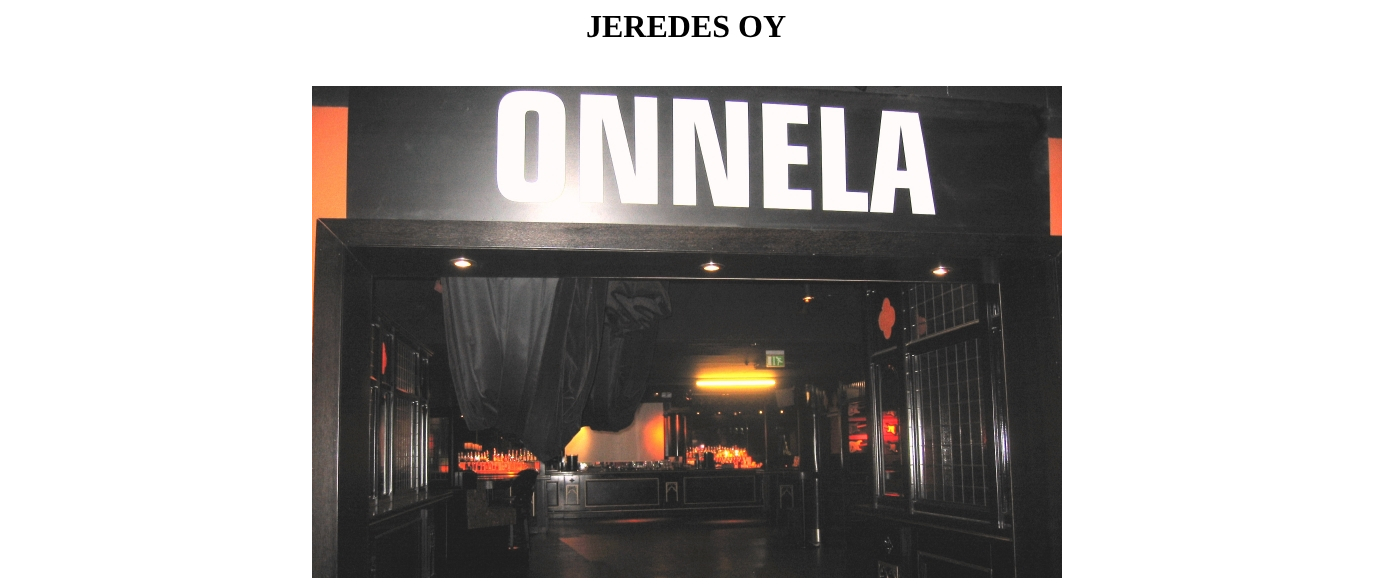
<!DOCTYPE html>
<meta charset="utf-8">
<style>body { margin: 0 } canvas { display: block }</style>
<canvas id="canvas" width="1373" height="578"></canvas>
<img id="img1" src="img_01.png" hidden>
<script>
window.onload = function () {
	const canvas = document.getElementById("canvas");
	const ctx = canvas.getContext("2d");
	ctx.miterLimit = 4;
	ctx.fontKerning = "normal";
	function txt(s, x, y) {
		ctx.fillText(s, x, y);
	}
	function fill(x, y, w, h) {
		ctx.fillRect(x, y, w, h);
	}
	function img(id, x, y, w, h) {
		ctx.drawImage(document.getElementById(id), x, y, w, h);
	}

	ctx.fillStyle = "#FFFFFF";
	fill(0, 0, 1373, 578);
	img("img1", 312, 86, 750, 492);
	ctx.font = "bold 32px Liberation Serif";
	ctx.fillStyle = "#000000";
	txt("JEREDES OY", 586, 37);
};
</script>
